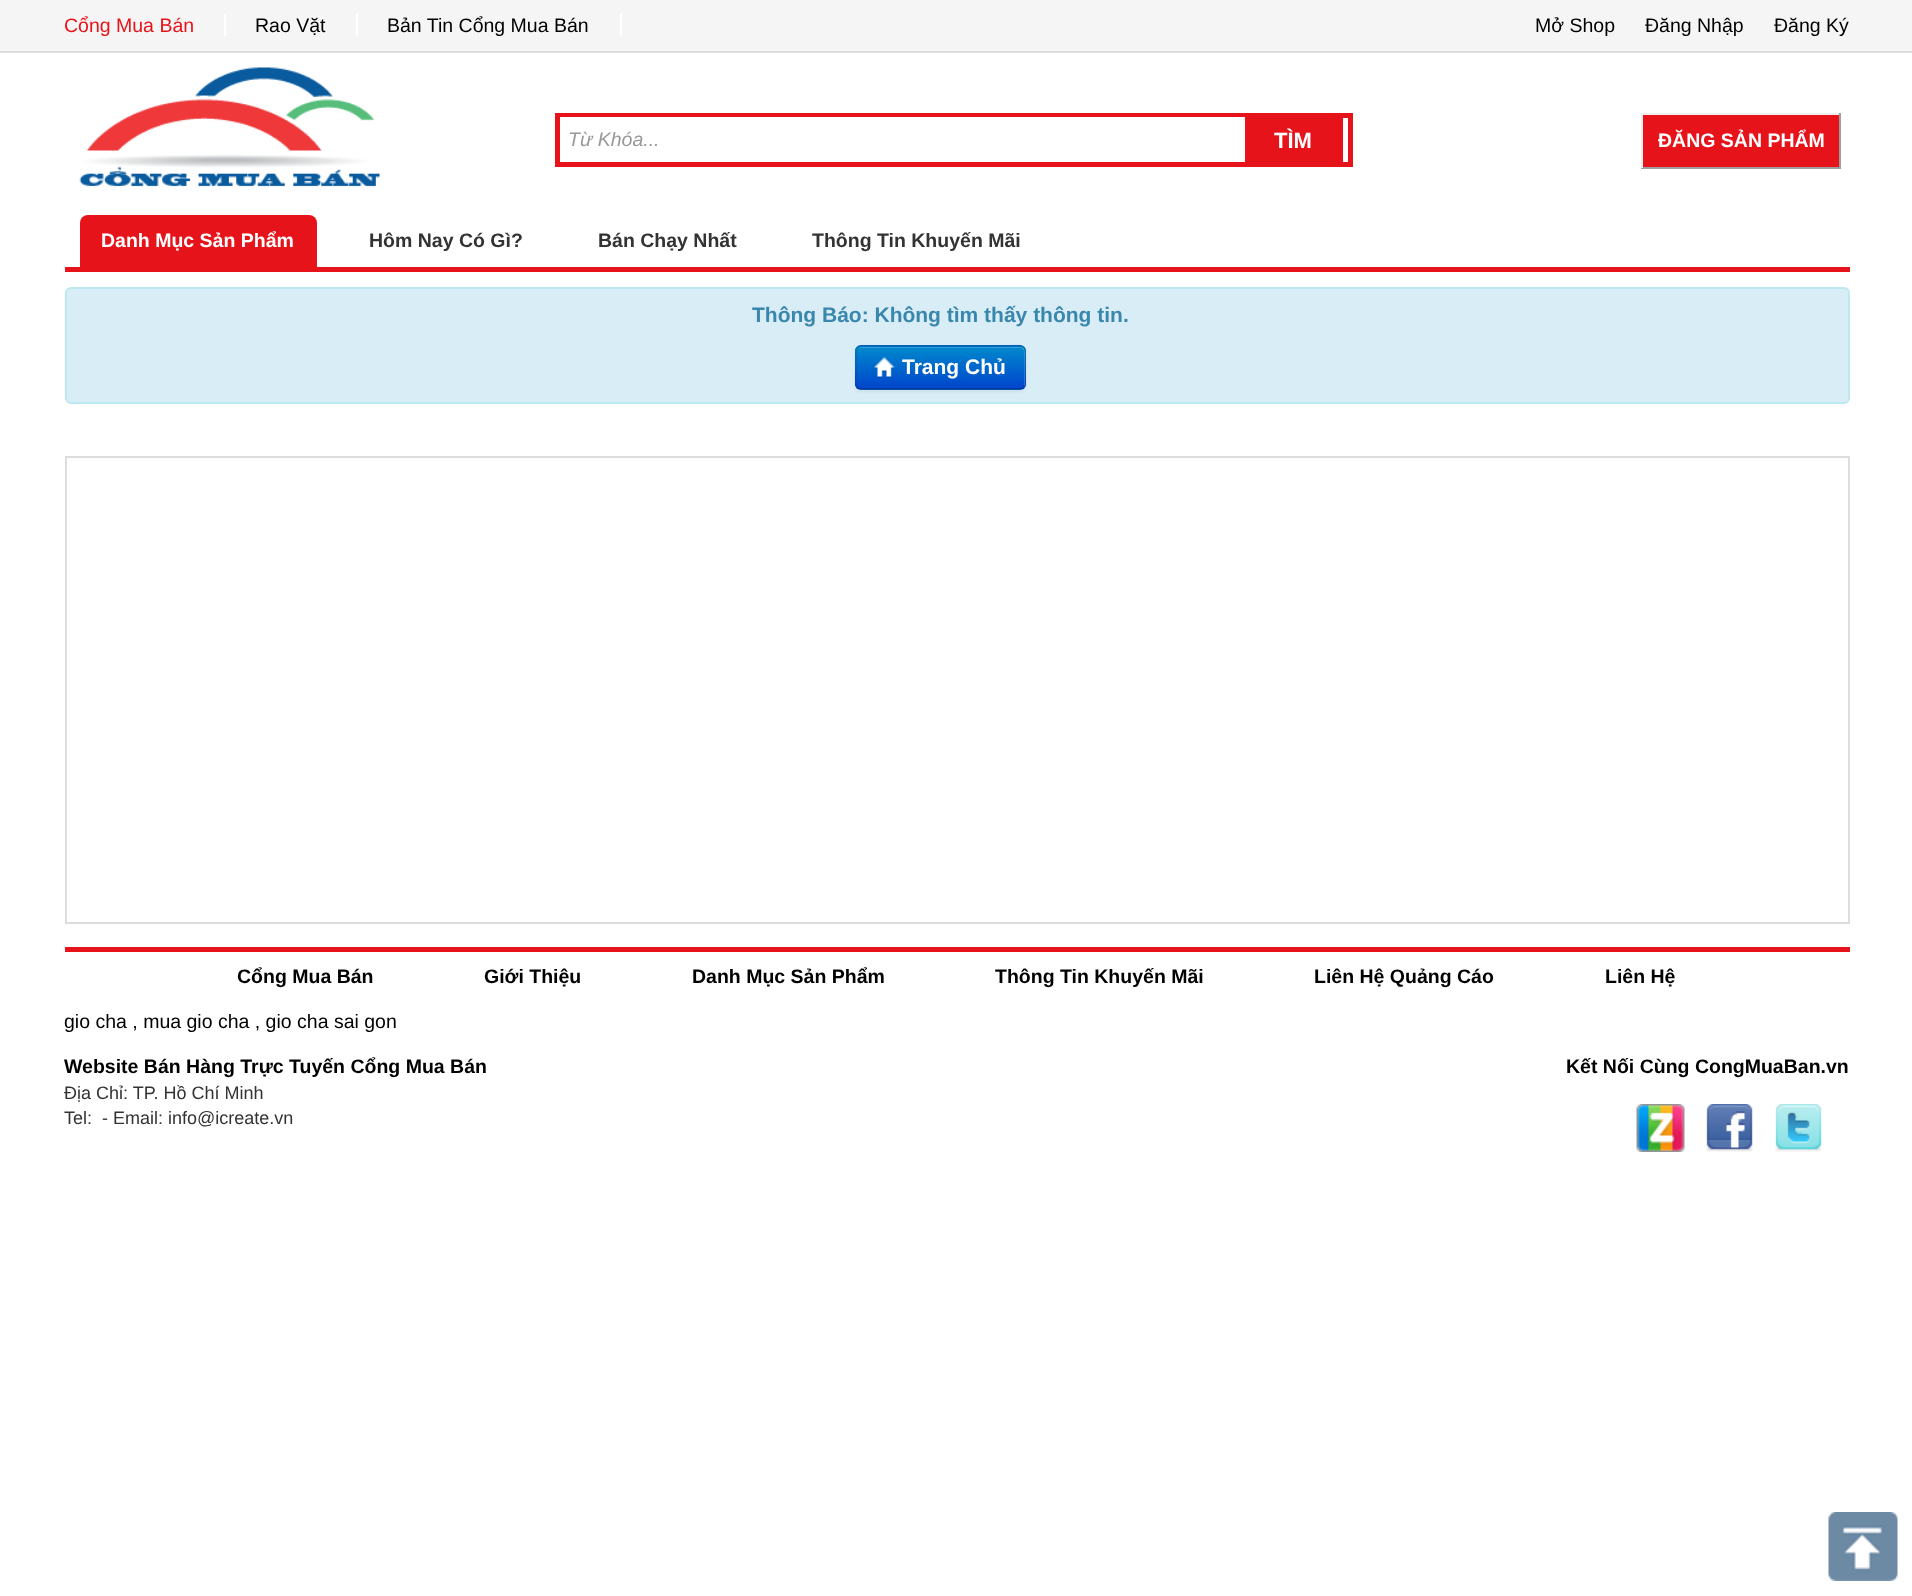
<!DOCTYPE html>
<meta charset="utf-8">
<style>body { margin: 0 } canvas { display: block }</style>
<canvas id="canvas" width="1912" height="1596"></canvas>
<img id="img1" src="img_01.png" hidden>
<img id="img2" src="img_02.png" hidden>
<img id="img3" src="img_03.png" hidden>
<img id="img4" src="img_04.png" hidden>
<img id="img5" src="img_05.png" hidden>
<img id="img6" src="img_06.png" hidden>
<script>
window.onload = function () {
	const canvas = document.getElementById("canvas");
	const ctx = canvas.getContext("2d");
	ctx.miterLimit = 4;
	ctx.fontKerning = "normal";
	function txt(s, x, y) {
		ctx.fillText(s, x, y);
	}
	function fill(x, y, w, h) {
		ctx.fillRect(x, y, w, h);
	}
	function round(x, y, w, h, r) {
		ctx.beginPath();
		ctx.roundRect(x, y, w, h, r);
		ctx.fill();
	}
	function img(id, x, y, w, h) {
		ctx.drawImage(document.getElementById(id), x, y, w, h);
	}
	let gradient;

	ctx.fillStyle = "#FFFFFF";
	fill(0, 0, 1912, 1596);
	ctx.fillStyle = "#F5F5F5";
	fill(0, 0, 1912, 51);
	ctx.fillStyle = "#DCDCDC";
	fill(0, 51, 1912, 2);
	ctx.fillStyle = "#FFFFFF";
	fill(224, 14, 2, 22);
	fill(356, 14, 2, 22);
	fill(620, 14, 2, 22);
	img("img1", 79, 67, 301, 120);
	ctx.strokeStyle = "#E7131A";
	ctx.lineWidth = 5;
	ctx.strokeRect(557.5, 115.5, 793, 49);
	fill(560, 117, 685, 1);
	ctx.fillStyle = "#E7131A";
	fill(1245, 118, 98, 44);
	fill(1643, 115, 196, 52);
	ctx.fillStyle = "#EFEFEF";
	fill(1641, 113, 200, 2);
	ctx.fillStyle = "#9F9F9F";
	fill(1839, 113, 2, 55);
	fill(1641, 167, 200, 2);
	ctx.fillStyle = "#EFEFEF";
	fill(1641, 113, 2, 55);
	ctx.fillStyle = "#E7131A";
	fill(65, 267, 1785, 5);
	ctx.beginPath();
	ctx.roundRect(80, 215, 237, 52, [8, 8, 0, 0]);
	ctx.fill();
	ctx.fillStyle = "#D9EDF7";
	ctx.beginPath();
	ctx.roundRect(66, 288, 1783, 115, 5);
	ctx.fill();
	ctx.strokeStyle = "#BCE8F1";
	ctx.lineWidth = 2;
	ctx.stroke();
	ctx.fillStyle = "rgba(0, 0, 0, 0.05)";
	ctx.filter = "blur(1.5px)";
	ctx.beginPath();
	ctx.roundRect(855, 347, 171, 45, 6);
	ctx.fill();
	ctx.filter = "none";
	ctx.fillStyle = "#006DCC";
	round(855, 345, 171, 45, 6);
	ctx.save();
	ctx.beginPath();
	ctx.roundRect(855, 345, 171, 45, 6);
	ctx.clip();
	gradient = ctx.createLinearGradient(941, 347, 941, 389);
	gradient.addColorStop(0, "#0088CC");
	gradient.addColorStop(1, "#0044CC");
	ctx.fillStyle = gradient;
	fill(855, 347, 171, 42);
	ctx.restore();
	ctx.fillStyle = "rgba(255, 255, 255, 0.2)";
	ctx.beginPath();
	ctx.moveTo(861, 348);
	ctx.lineTo(1020, 348);
	ctx.bezierCurveTo(1022, 348, 1024, 350, 1024, 352);
	ctx.lineTo(1024, 387);
	ctx.bezierCurveTo(1025, 386, 1025, 385, 1025, 384);
	ctx.lineTo(1025, 352);
	ctx.bezierCurveTo(1025, 349, 1023, 347, 1020, 347);
	ctx.lineTo(862, 347);
	ctx.bezierCurveTo(860, 347, 859, 348, 858, 349);
	ctx.closePath();
	ctx.fill();
	ctx.beginPath();
	ctx.moveTo(1023.5, 387.5);
	ctx.bezierCurveTo(1022.5, 388.5, 1021.5, 389, 1020, 389);
	ctx.lineTo(861, 389);
	ctx.bezierCurveTo(859.5, 389, 858.5, 388.5, 857.5, 387.5);
	ctx.strokeStyle = "rgba(0, 0, 0, 0.25)";
	ctx.lineWidth = 1.5;
	ctx.stroke();
	ctx.beginPath();
	ctx.moveTo(857.5, 387.5);
	ctx.bezierCurveTo(854, 384.5, 856, 376.5, 856, 373);
	ctx.bezierCurveTo(856, 339.5, 850.5, 346, 887.5, 346);
	ctx.lineTo(993.5, 346);
	ctx.bezierCurveTo(1030.5, 346, 1025, 339.5, 1025, 373);
	ctx.bezierCurveTo(1025, 376.5, 1027, 384.5, 1023.5, 387.5);
	ctx.strokeStyle = "rgba(0, 0, 0, 0.1)";
	ctx.stroke();
	img("img2", 874, 357, 21, 21);
	ctx.strokeStyle = "#DDDDDD";
	ctx.lineWidth = 2;
	ctx.strokeRect(66, 457, 1783, 466);
	ctx.fillStyle = "#E7131A";
	fill(65, 947, 1785, 5);
	img("img3", 1636, 1104, 49, 48);
	img("img4", 1706, 1104, 47, 48);
	img("img5", 1775, 1104, 47, 48);
	img("img6", 1828, 1512, 70, 69);
	ctx.font = "19.5px Liberation Sans";
	txt("Cổng Mua Bán", 64, 32);
	ctx.fillStyle = "#000000";
	txt("Rao Vặt", 255, 32);
	txt("Bản Tin Cổng Mua Bán", 387, 32);
	txt("Mở Shop", 1535, 32);
	txt("Đăng Nhập", 1645, 32);
	txt("Đăng Ký", 1774, 32);
	ctx.font = "italic 19.5px Liberation Sans";
	ctx.fillStyle = "#999999";
	txt("Từ Khóa...", 568, 146);
	ctx.font = "bold 22px Liberation Sans";
	ctx.fillStyle = "#FFFFFF";
	txt("TÌM", 1274, 148);
	ctx.font = "bold 19.5px Liberation Sans";
	txt("ĐĂNG SẢN PHẨM", 1658, 147);
	txt("Danh Mục Sản Phẩm", 101, 247);
	ctx.fillStyle = "#333333";
	txt("Hôm Nay Có Gì?", 369, 247);
	txt("Bán Chạy Nhất", 598, 247);
	txt("Thông Tin Khuyến Mãi", 812, 247);
	ctx.font = "bold 21px Liberation Sans";
	ctx.fillStyle = "#3A87AD";
	txt("Thông Báo: Không tìm thấy thông tin.", 752, 322);
	ctx.fillStyle = "#FFFFFF";
	txt("Trang Chủ", 902, 374);
	ctx.font = "bold 19.5px Liberation Sans";
	ctx.fillStyle = "#000000";
	txt("Cổng Mua Bán", 237, 983);
	txt("Giới Thiệu", 484, 983);
	txt("Danh Mục Sản Phẩm", 692, 983);
	txt("Thông Tin Khuyến Mãi", 995, 983);
	txt("Liên Hệ Quảng Cáo", 1314, 983);
	txt("Liên Hệ", 1605, 983);
	ctx.font = "19.5px Liberation Sans";
	txt("gio cha , mua gio cha , gio cha sai gon", 64, 1028);
	ctx.font = "bold 19.5px Liberation Sans";
	txt("Website Bán Hàng Trực Tuyến Cổng Mua Bán", 64, 1073);
	ctx.font = "18px Liberation Sans";
	ctx.fillStyle = "#333333";
	txt("Địa Chỉ: TP. Hồ Chí Minh", 64, 1099);
	txt("Tel:  - Email: info@icreate.vn", 64, 1124);
	ctx.font = "bold 19.5px Liberation Sans";
	ctx.fillStyle = "#000000";
	txt("Kết Nối Cùng CongMuaBan.vn", 1566, 1073);
};
</script>
